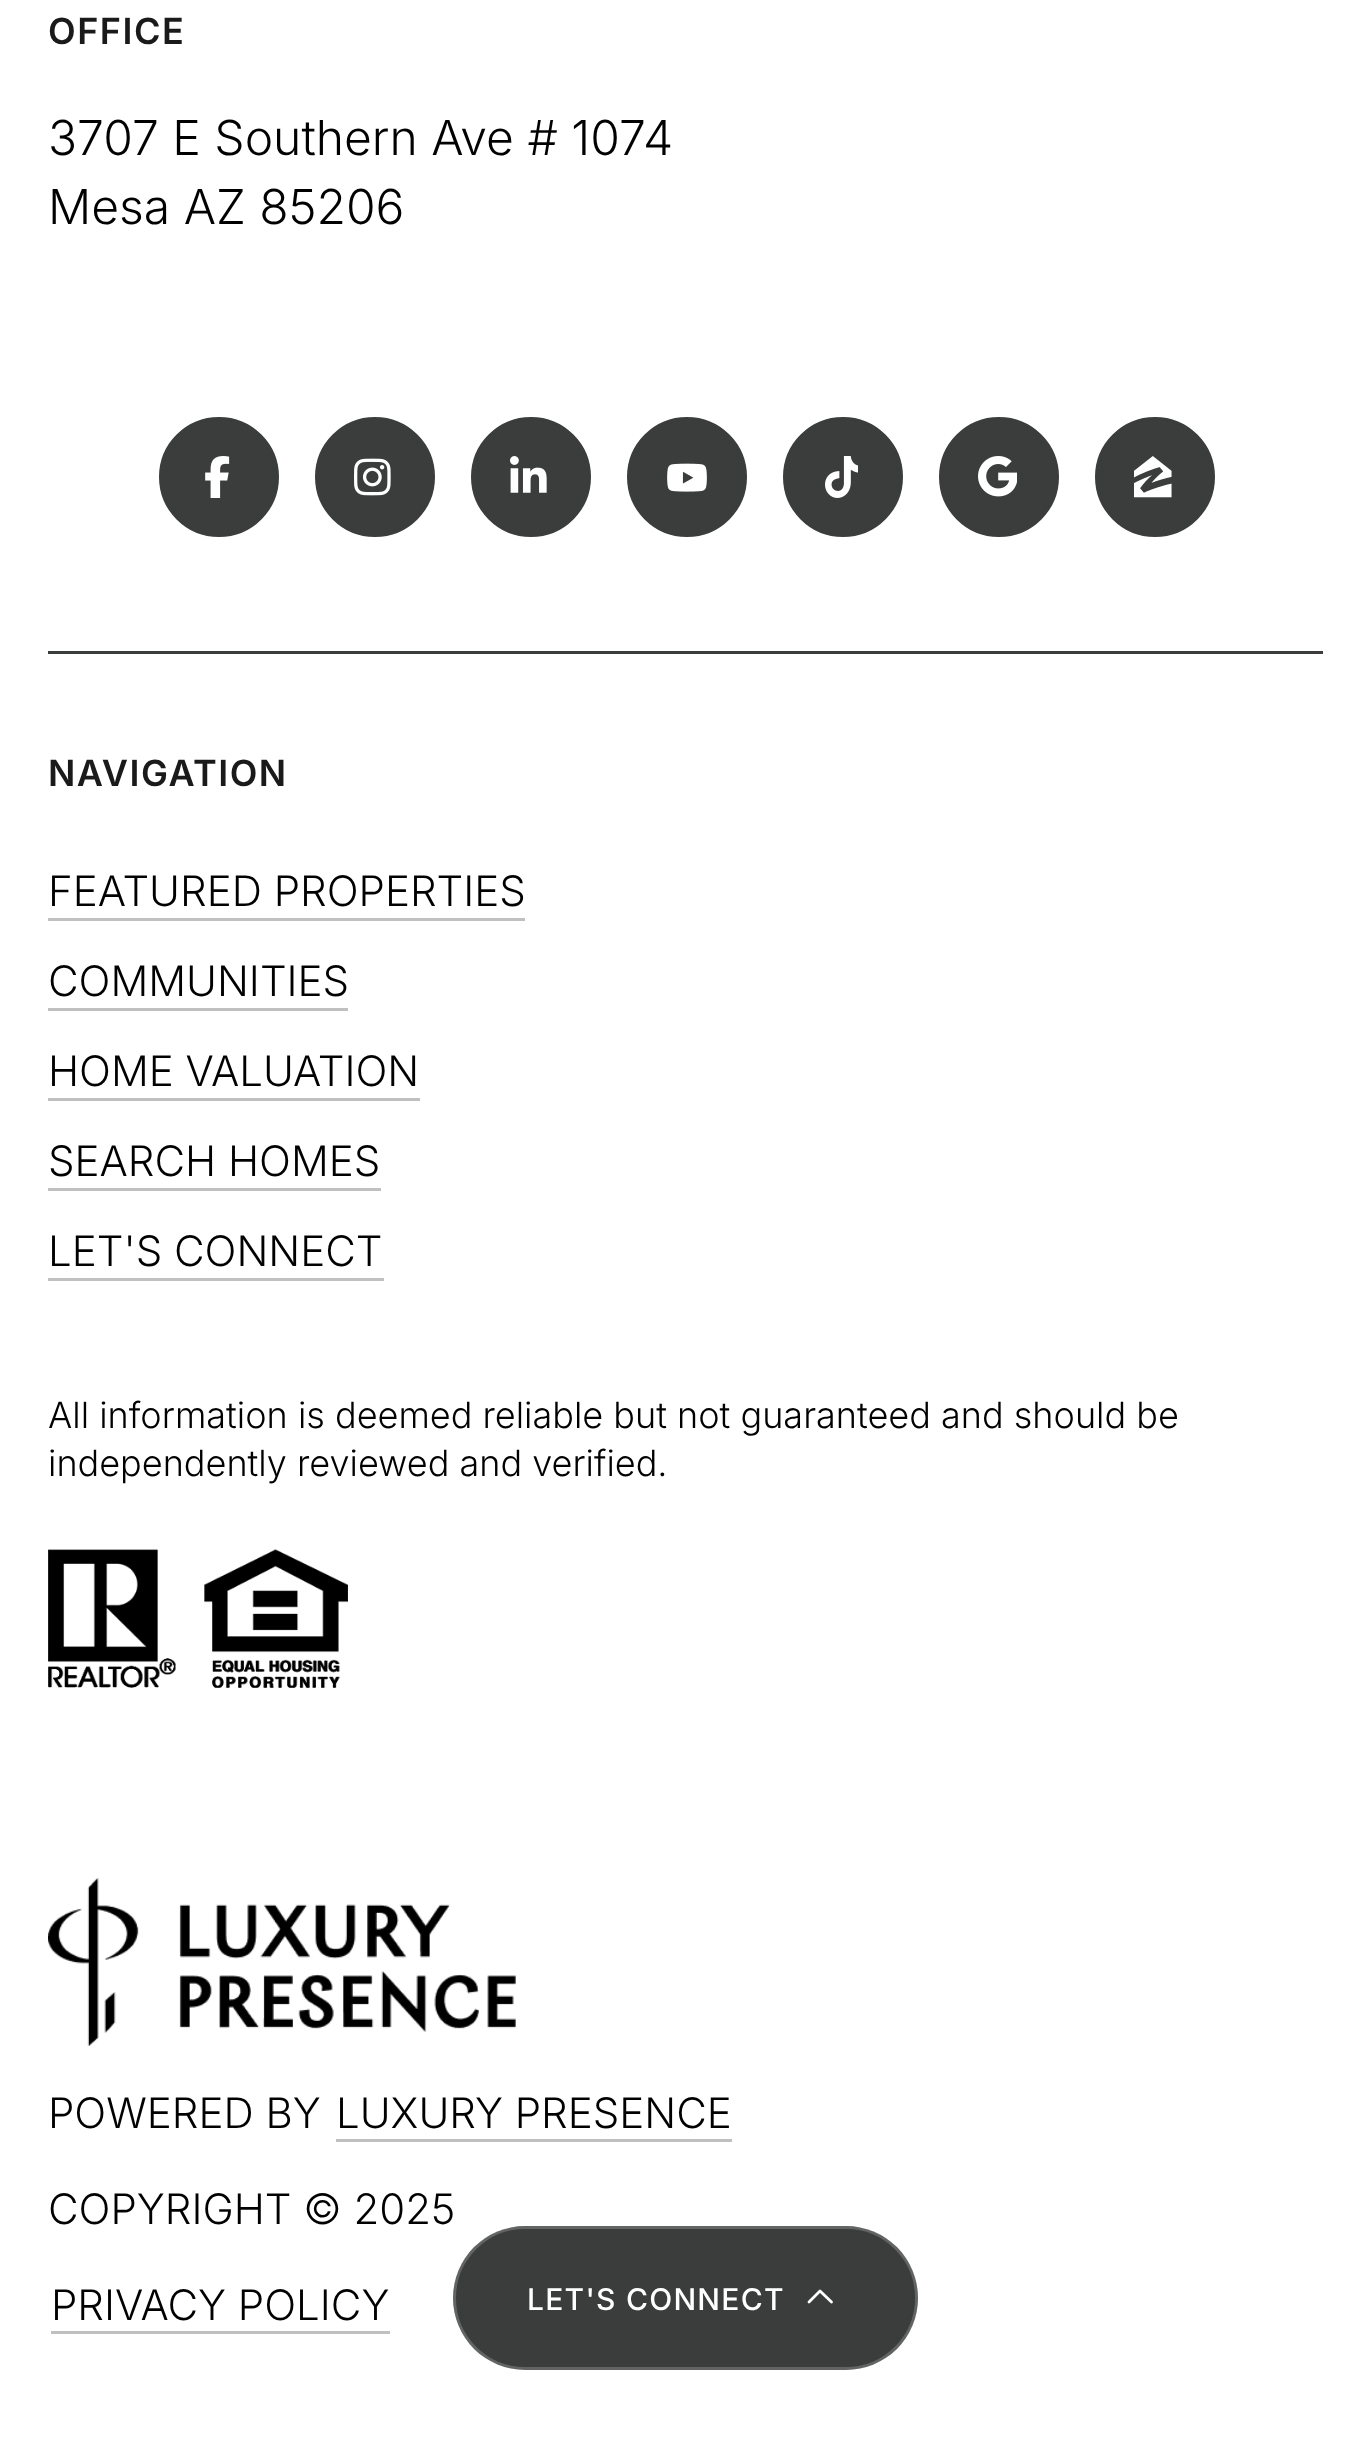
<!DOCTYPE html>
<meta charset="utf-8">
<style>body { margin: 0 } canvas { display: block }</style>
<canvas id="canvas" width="1370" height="2452"></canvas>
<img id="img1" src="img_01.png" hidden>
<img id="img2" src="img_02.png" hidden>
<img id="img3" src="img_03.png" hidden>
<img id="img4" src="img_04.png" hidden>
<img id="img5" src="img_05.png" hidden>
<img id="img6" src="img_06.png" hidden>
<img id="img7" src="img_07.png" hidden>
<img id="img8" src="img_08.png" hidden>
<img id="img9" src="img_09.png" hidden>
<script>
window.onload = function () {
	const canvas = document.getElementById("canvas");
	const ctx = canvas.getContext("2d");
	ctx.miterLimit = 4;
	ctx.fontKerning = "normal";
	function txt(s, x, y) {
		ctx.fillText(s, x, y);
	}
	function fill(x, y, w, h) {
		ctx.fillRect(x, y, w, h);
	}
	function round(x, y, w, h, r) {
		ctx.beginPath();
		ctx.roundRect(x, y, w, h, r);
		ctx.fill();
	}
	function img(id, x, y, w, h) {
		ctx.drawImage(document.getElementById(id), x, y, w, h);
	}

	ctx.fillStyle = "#FFFFFF";
	fill(0, 0, 1370, 2452);
	ctx.fillStyle = "#3B3D3D";
	fill(48, 651, 1275, 3);
	ctx.beginPath();
	ctx.arc(219, 477, 58.5, 0, Math.PI * 2);
	ctx.fill();
	ctx.strokeStyle = "#3B3D3D";
	ctx.lineWidth = 3;
	ctx.stroke();
	img("img1", 205, 456, 25, 42);
	ctx.beginPath();
	ctx.arc(375, 477, 58.5, 0, Math.PI * 2);
	ctx.fill();
	ctx.stroke();
	img("img2", 354, 458, 37, 38);
	ctx.beginPath();
	ctx.arc(531, 477, 58.5, 0, Math.PI * 2);
	ctx.fill();
	ctx.stroke();
	img("img3", 510, 456, 37, 37);
	ctx.beginPath();
	ctx.arc(687, 477, 58.5, 0, Math.PI * 2);
	ctx.fill();
	ctx.stroke();
	img("img4", 667, 463, 40, 29);
	ctx.beginPath();
	ctx.arc(843, 477, 58.5, 0, Math.PI * 2);
	ctx.fill();
	ctx.stroke();
	img("img5", 825, 456, 33, 42);
	ctx.beginPath();
	ctx.arc(999, 477, 58.5, 0, Math.PI * 2);
	ctx.fill();
	ctx.stroke();
	img("img6", 978, 456, 39, 41);
	ctx.beginPath();
	ctx.arc(1155, 477, 58.5, 0, Math.PI * 2);
	ctx.fill();
	ctx.stroke();
	img("img7", 1134, 456, 38, 42);
	ctx.fillStyle = "#C0C0C0";
	fill(48, 918, 477, 3);
	fill(48, 1008, 300, 3);
	fill(48, 1098, 372, 3);
	fill(48, 1188, 333, 3);
	fill(48, 1278, 336, 3);
	img("img8", 48, 1549, 300, 139);
	img("img9", 48, 1878, 468, 168);
	fill(336, 2139, 396, 3);
	fill(51, 2331, 339, 3);
	ctx.fillStyle = "#3B3D3D";
	round(453, 2226, 465, 144, 72);
	ctx.beginPath();
	ctx.roundRect(454.5, 2227.5, 462, 141, 70.5);
	ctx.strokeStyle = "rgba(255, 255, 255, 0.2)";
	ctx.stroke();
	ctx.beginPath();
	ctx.moveTo(831.5, 2302);
	ctx.lineTo(820, 2291);
	ctx.lineTo(809, 2302);
	ctx.strokeStyle = "#FFFFFF";
	ctx.lineWidth = 2.8;
	ctx.lineCap = "round";
	ctx.lineJoin = "round";
	ctx.stroke();
	ctx.letterSpacing = "1.5px";
	ctx.font = "600 36px Inter";
	ctx.fillStyle = "#1A1A1A";
	txt("OFFICE", 48, 44);
	ctx.letterSpacing = "0px";
	ctx.font = "300 48px Inter";
	ctx.fillStyle = "#000000";
	txt("3707 E Southern Ave # 1074", 48, 155);
	txt("Mesa AZ 85206", 48, 224);
	ctx.letterSpacing = "1.5px";
	ctx.font = "600 36px Inter";
	ctx.fillStyle = "#1A1A1A";
	txt("NAVIGATION", 48, 786);
	ctx.letterSpacing = "0px";
	ctx.font = "300 42px Inter";
	ctx.fillStyle = "#000000";
	txt("FEATURED PROPERTIES", 48, 906);
	txt("COMMUNITIES", 48, 996);
	txt("HOME VALUATION", 48, 1086);
	txt("SEARCH HOMES", 48, 1176);
	txt("LET'S CONNECT", 48, 1266);
	ctx.font = "300 36px Inter";
	txt("All information is deemed reliable but not guaranteed and should be", 48, 1428);
	txt("independently reviewed and verified.", 48, 1476);
	ctx.font = "300 42px Inter";
	txt("POWERED BY", 48, 2128);
	txt("LUXURY PRESENCE", 336, 2128);
	txt("COPYRIGHT © 2025", 48, 2224);
	txt("PRIVACY POLICY", 51, 2320);
	ctx.letterSpacing = "1.25px";
	ctx.font = "500 30px Inter";
	ctx.fillStyle = "#FFFFFF";
	txt("LET'S CONNECT", 527, 2310);
};
</script>
